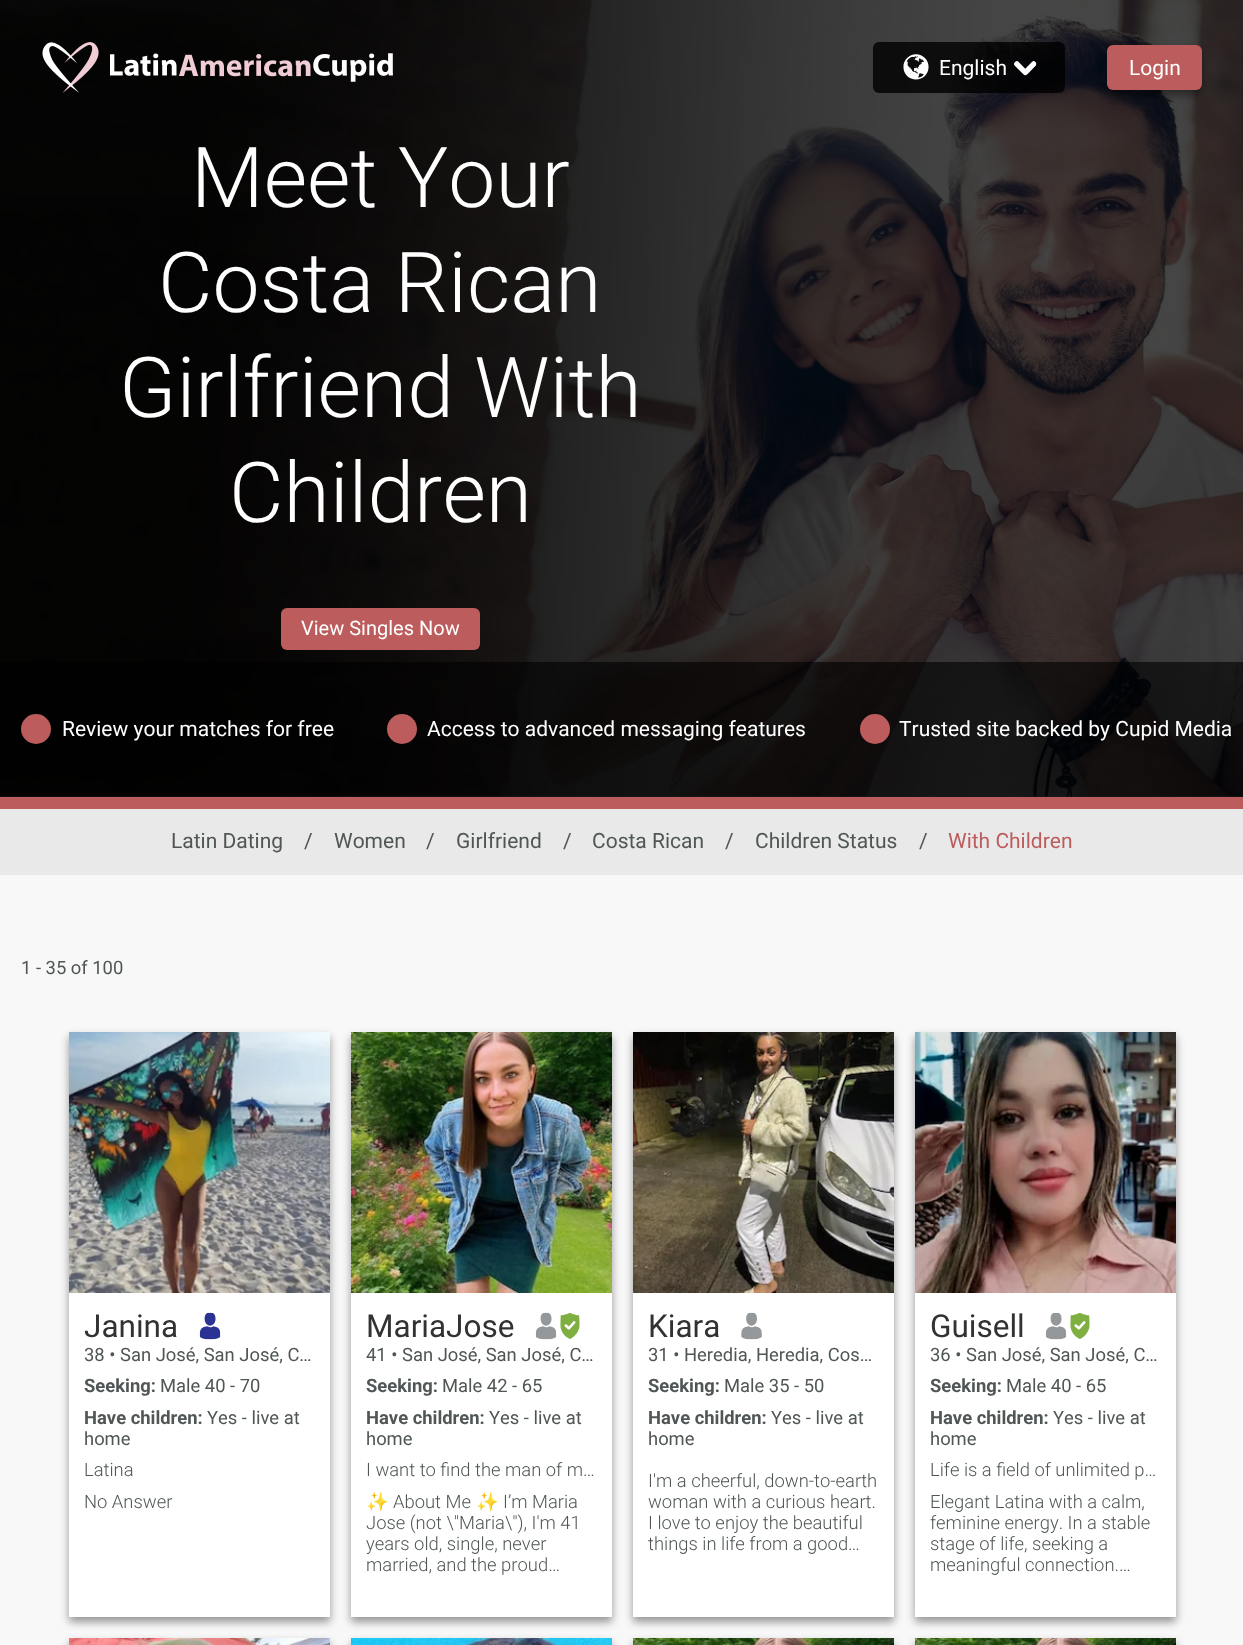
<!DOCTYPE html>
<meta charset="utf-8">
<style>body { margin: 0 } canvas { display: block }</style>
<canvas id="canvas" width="1243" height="1645"></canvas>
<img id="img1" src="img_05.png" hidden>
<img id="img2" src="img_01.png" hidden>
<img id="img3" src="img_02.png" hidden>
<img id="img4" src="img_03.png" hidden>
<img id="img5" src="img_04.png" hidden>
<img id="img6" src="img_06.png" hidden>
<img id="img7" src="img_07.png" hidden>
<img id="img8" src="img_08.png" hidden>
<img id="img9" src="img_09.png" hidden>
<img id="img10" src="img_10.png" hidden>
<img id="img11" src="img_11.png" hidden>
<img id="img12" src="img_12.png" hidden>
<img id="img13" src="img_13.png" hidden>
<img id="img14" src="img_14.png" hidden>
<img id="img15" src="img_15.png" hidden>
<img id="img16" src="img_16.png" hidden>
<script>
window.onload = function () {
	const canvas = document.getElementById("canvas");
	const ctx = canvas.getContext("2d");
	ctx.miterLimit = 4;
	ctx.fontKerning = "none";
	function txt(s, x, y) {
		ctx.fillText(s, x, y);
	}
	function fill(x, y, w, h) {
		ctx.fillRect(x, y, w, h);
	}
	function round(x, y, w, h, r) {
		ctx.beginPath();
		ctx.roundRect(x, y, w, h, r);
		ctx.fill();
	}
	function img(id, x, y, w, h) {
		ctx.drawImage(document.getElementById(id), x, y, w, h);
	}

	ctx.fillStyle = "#F8F8F8";
	fill(0, 0, 1243, 1645);
	ctx.fillStyle = "#4D4D4D";
	fill(0, 796, 1243, 1);
	img("img1", 0, 0, 1243, 797);
	img("img2", 42, 42, 57, 51);
	img("img3", 110, 53, 283, 29);
	ctx.fillStyle = "rgba(0, 0, 0, 0.8)";
	round(873, 42, 192, 51, 6);
	img("img4", 903, 54, 26, 26);
	img("img5", 1014, 61, 23, 15);
	ctx.fillStyle = "rgba(0, 0, 0, 0.4)";
	ctx.filter = "blur(4.5px)";
	ctx.beginPath();
	ctx.roundRect(1107, 50, 95, 45, 6);
	ctx.fill();
	ctx.filter = "none";
	ctx.fillStyle = "#BD5C5C";
	round(1107, 45, 95, 45, 6);
	round(281, 608, 199, 42, 6);
	ctx.fillStyle = "rgba(0, 0, 0, 0.6)";
	fill(0, 662, 1243, 135);
	ctx.fillStyle = "#BD5C5C";
	ctx.beginPath();
	ctx.arc(36, 729, 15, 0, Math.PI * 2);
	ctx.fill();
	ctx.beginPath();
	ctx.arc(402, 729, 15, 0, Math.PI * 2);
	ctx.fill();
	ctx.beginPath();
	ctx.arc(875, 729, 15, 0, Math.PI * 2);
	ctx.fill();
	fill(0, 797, 1243, 12);
	ctx.fillStyle = "#E9E9E9";
	fill(0, 809, 1243, 66);
	ctx.fillStyle = "rgba(0, 0, 0, 0.4)";
	ctx.filter = "blur(4.5px)";
	ctx.beginPath();
	ctx.rect(69, 1037, 261, 585);
	ctx.fill();
	ctx.filter = "none";
	ctx.fillStyle = "#FFFFFF";
	fill(69, 1293, 261, 324);
	img("img6", 69, 1032, 261, 261);
	img("img7", 199, 1312, 22, 28);
	ctx.fillStyle = "rgba(0, 0, 0, 0.4)";
	ctx.filter = "blur(4.5px)";
	ctx.beginPath();
	ctx.rect(351, 1037, 261, 585);
	ctx.fill();
	ctx.filter = "none";
	ctx.fillStyle = "#FFFFFF";
	fill(351, 1293, 261, 324);
	img("img8", 351, 1032, 261, 261);
	img("img9", 535, 1312, 22, 28);
	img("img10", 560, 1313, 20, 26);
	ctx.fillStyle = "rgba(0, 0, 0, 0.4)";
	ctx.filter = "blur(4.5px)";
	ctx.beginPath();
	ctx.rect(633, 1037, 261, 585);
	ctx.fill();
	ctx.filter = "none";
	ctx.fillStyle = "#FFFFFF";
	fill(633, 1293, 261, 324);
	img("img11", 633, 1032, 261, 261);
	img("img12", 741, 1312, 21, 28);
	ctx.fillStyle = "rgba(0, 0, 0, 0.4)";
	ctx.filter = "blur(4.5px)";
	ctx.beginPath();
	ctx.rect(915, 1037, 261, 585);
	ctx.fill();
	ctx.filter = "none";
	ctx.fillStyle = "#FFFFFF";
	fill(915, 1293, 261, 324);
	img("img13", 915, 1032, 261, 261);
	img("img9", 1045, 1312, 22, 28);
	img("img10", 1070, 1313, 20, 26);
	ctx.fillStyle = "rgba(0, 0, 0, 0.4)";
	ctx.filter = "blur(4.5px)";
	ctx.beginPath();
	ctx.rect(69, 1643, 261, 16);
	ctx.fill();
	ctx.filter = "none";
	img("img14", 69, 1638, 261, 7);
	ctx.filter = "blur(4.5px)";
	ctx.beginPath();
	ctx.rect(351, 1643, 261, 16);
	ctx.fill();
	ctx.filter = "none";
	img("img15", 351, 1638, 261, 7);
	ctx.filter = "blur(4.5px)";
	ctx.beginPath();
	ctx.rect(633, 1643, 261, 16);
	ctx.fill();
	ctx.filter = "none";
	img("img16", 633, 1638, 261, 7);
	ctx.filter = "blur(4.5px)";
	ctx.beginPath();
	ctx.rect(915, 1643, 261, 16);
	ctx.fill();
	ctx.filter = "none";
	img("img16", 915, 1638, 261, 7);
	ctx.font = "21px Roboto";
	ctx.fillStyle = "#FFFFFF";
	txt("English", 939, 75);
	txt("Login", 1129, 75);
	ctx.font = "300 84px Roboto";
	txt("Meet Your", 191, 207);
	txt("Costa Rican", 158, 312);
	txt("Girlfriend With", 119, 417);
	txt("Children", 229, 522);
	ctx.font = "20px Roboto";
	txt("View Singles Now", 301, 635);
	ctx.font = "21px Roboto";
	txt("Review your matches for free", 62, 736);
	txt("Access to advanced messaging features", 427, 736);
	txt("Trusted site backed by Cupid Media", 899, 736);
	ctx.fillStyle = "#505656";
	txt("Latin Dating", 171, 848);
	txt("/", 304, 848);
	txt("Women", 334, 848);
	txt("/", 426, 848);
	txt("Girlfriend", 456, 848);
	txt("/", 563, 848);
	txt("Costa Rican", 592, 848);
	txt("/", 725, 848);
	txt("Children Status", 755, 848);
	txt("/", 919, 848);
	ctx.fillStyle = "#BD5C5C";
	txt("With Children", 948, 848);
	ctx.font = "18.4px Roboto";
	ctx.fillStyle = "#505656";
	txt("1 - 35 of 100", 21, 974);
	ctx.font = "31.5px Roboto";
	ctx.fillStyle = "#323232";
	txt("Janina", 84, 1337);
	ctx.font = "18.4px Roboto";
	ctx.fillStyle = "#505656";
	txt("38 • San José, San José, C…", 84, 1361);
	ctx.font = "bold 18.4px Roboto";
	txt("Seeking:", 84, 1392);
	ctx.font = "18.4px Roboto";
	txt("Male 40 - 70", 160, 1392);
	ctx.font = "bold 18.4px Roboto";
	txt("Have children:", 84, 1424);
	ctx.font = "18.4px Roboto";
	txt("Yes - live at", 207, 1424);
	txt("home", 84, 1445);
	ctx.font = "300 18.4px Roboto";
	txt("Latina", 84, 1476);
	txt("No Answer", 84, 1508);
	ctx.font = "31.5px Roboto";
	ctx.fillStyle = "#323232";
	txt("MariaJose", 366, 1337);
	ctx.font = "18.4px Roboto";
	ctx.fillStyle = "#505656";
	txt("41 • San José, San José, C…", 366, 1361);
	ctx.font = "bold 18.4px Roboto";
	txt("Seeking:", 366, 1392);
	ctx.font = "18.4px Roboto";
	txt("Male 42 - 65", 442, 1392);
	ctx.font = "bold 18.4px Roboto";
	txt("Have children:", 366, 1424);
	ctx.font = "18.4px Roboto";
	txt("Yes - live at", 489, 1424);
	txt("home", 366, 1445);
	ctx.font = "300 18.4px Roboto";
	txt("I want to find the man of m…", 366, 1476);
	ctx.font = "18.4px Noto Color Emoji";
	txt("✨", 366, 1508);
	ctx.font = "300 18.4px Roboto";
	txt("About Me", 393, 1508);
	ctx.font = "18.4px Noto Color Emoji";
	txt("✨", 476, 1508);
	ctx.font = "300 18.4px Roboto";
	txt("I’m Maria", 503, 1508);
	txt("Jose (not \\\"Maria\\\"), I'm 41", 366, 1529);
	txt("years old, single, never", 366, 1550);
	txt("married, and the proud…", 366, 1571);
	ctx.font = "31.5px Roboto";
	ctx.fillStyle = "#323232";
	txt("Kiara", 648, 1337);
	ctx.font = "18.4px Roboto";
	ctx.fillStyle = "#505656";
	txt("31 • Heredia, Heredia, Cos…", 648, 1361);
	ctx.font = "bold 18.4px Roboto";
	txt("Seeking:", 648, 1392);
	ctx.font = "18.4px Roboto";
	txt("Male 35 - 50", 724, 1392);
	ctx.font = "bold 18.4px Roboto";
	txt("Have children:", 648, 1424);
	ctx.font = "18.4px Roboto";
	txt("Yes - live at", 771, 1424);
	txt("home", 648, 1445);
	ctx.font = "300 18.4px Roboto";
	txt("I'm a cheerful, down-to-earth", 648, 1487);
	txt("woman with a curious heart.", 648, 1508);
	txt("I love to enjoy the beautiful", 648, 1529);
	txt("things in life from a good…", 648, 1550);
	ctx.font = "31.5px Roboto";
	ctx.fillStyle = "#323232";
	txt("Guisell", 930, 1337);
	ctx.font = "18.4px Roboto";
	ctx.fillStyle = "#505656";
	txt("36 • San José, San José, C…", 930, 1361);
	ctx.font = "bold 18.4px Roboto";
	txt("Seeking:", 930, 1392);
	ctx.font = "18.4px Roboto";
	txt("Male 40 - 65", 1006, 1392);
	ctx.font = "bold 18.4px Roboto";
	txt("Have children:", 930, 1424);
	ctx.font = "18.4px Roboto";
	txt("Yes - live at", 1053, 1424);
	txt("home", 930, 1445);
	ctx.font = "300 18.4px Roboto";
	txt("Life is a field of unlimited p…", 930, 1476);
	txt("Elegant Latina with a calm,", 930, 1508);
	txt("feminine energy. In a stable", 930, 1529);
	txt("stage of life, seeking a", 930, 1550);
	txt("meaningful connection.…", 930, 1571);
};
</script>
